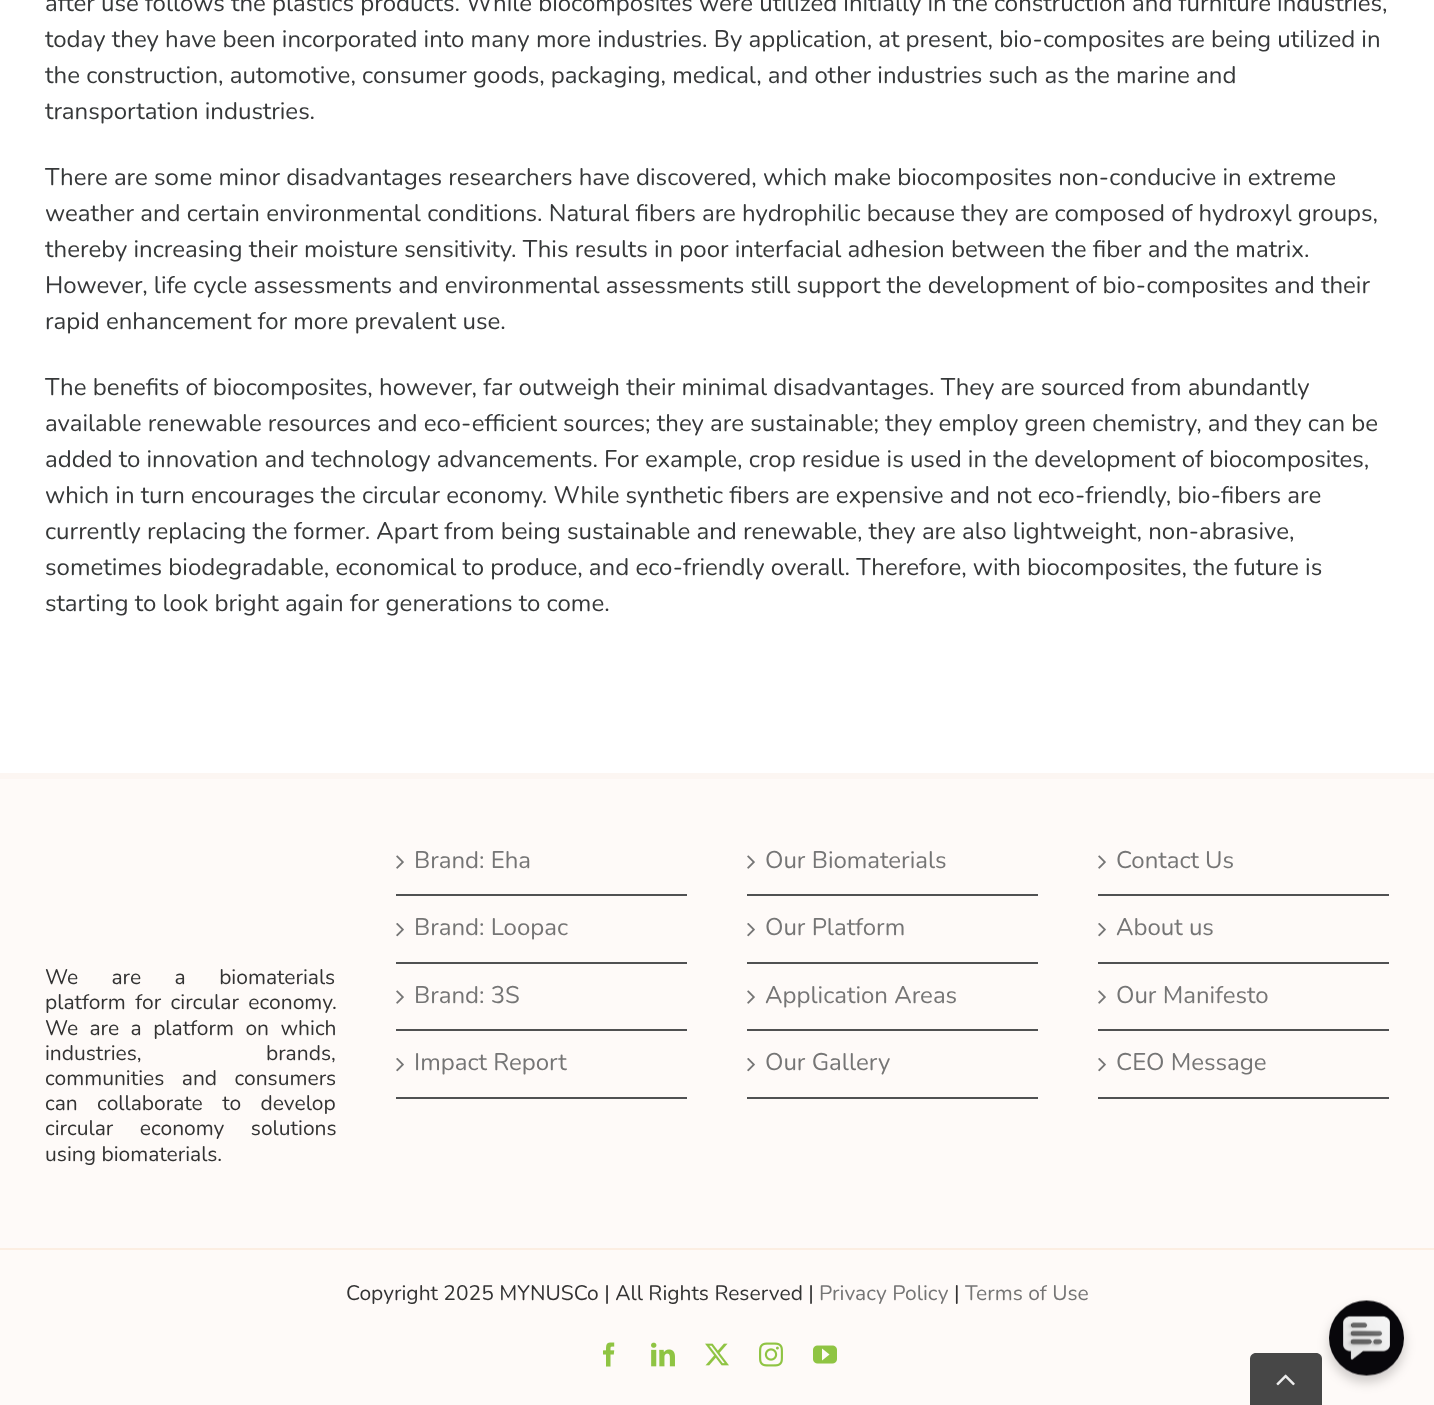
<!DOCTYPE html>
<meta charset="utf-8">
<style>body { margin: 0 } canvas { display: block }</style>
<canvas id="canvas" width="1434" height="1405"></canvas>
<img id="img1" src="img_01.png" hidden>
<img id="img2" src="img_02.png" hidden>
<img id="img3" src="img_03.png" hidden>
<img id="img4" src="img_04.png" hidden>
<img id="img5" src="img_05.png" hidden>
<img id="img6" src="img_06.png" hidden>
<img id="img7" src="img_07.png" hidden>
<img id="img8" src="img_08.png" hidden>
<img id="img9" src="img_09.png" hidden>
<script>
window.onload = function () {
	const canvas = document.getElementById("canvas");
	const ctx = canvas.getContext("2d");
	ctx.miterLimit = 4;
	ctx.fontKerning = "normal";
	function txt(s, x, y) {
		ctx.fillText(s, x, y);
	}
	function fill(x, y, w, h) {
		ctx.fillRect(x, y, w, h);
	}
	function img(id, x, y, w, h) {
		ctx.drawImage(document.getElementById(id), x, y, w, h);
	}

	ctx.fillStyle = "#FFFFFF";
	fill(0, 0, 1434, 1405);
	ctx.fillStyle = "#FEFAF8";
	fill(0, 779, 1434, 469);
	ctx.fillStyle = "#FCF6F2";
	fill(0, 773, 1434, 6);
	ctx.fillStyle = "#505152";
	fill(396, 894, 291, 2);
	img("img1", 396, 855, 8, 14);
	fill(396, 962, 291, 2);
	img("img2", 396, 923, 8, 14);
	fill(396, 1029, 291, 2);
	img("img1", 396, 990, 8, 14);
	fill(396, 1097, 291, 2);
	img("img2", 396, 1058, 8, 14);
	fill(747, 894, 291, 2);
	img("img1", 747, 855, 8, 14);
	fill(747, 962, 291, 2);
	img("img2", 747, 923, 8, 14);
	fill(747, 1029, 291, 2);
	img("img1", 747, 990, 8, 14);
	fill(747, 1097, 291, 2);
	img("img2", 747, 1058, 8, 14);
	fill(1098, 894, 291, 2);
	img("img1", 1098, 855, 8, 14);
	fill(1098, 962, 291, 2);
	img("img2", 1098, 923, 8, 14);
	fill(1098, 1029, 291, 2);
	img("img1", 1098, 990, 8, 14);
	fill(1098, 1097, 291, 2);
	img("img2", 1098, 1058, 8, 14);
	ctx.fillStyle = "#FEFAF8";
	fill(0, 1250, 1434, 155);
	ctx.fillStyle = "#FCEEE2";
	fill(0, 1248, 1434, 2);
	img("img3", 603, 1342, 12, 25);
	img("img4", 651, 1342, 24, 25);
	img("img5", 705, 1343, 24, 23);
	img("img6", 759, 1342, 24, 25);
	img("img7", 813, 1345, 24, 19);
	ctx.fillStyle = "#474747";
	ctx.beginPath();
	ctx.moveTo(1256, 1353);
	ctx.lineTo(1316, 1353);
	ctx.bezierCurveTo(1319.5, 1353, 1322, 1355.5, 1322, 1359);
	ctx.lineTo(1322, 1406);
	ctx.lineTo(1250, 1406);
	ctx.lineTo(1250, 1359);
	ctx.bezierCurveTo(1250, 1355.5, 1252.5, 1353, 1256, 1353);
	ctx.closePath();
	ctx.fill();
	img("img8", 1276, 1374, 19, 12);
	ctx.fillStyle = "rgba(0, 0, 0, 0.2)";
	ctx.filter = "blur(6px)";
	ctx.beginPath();
	ctx.roundRect(1329, 1307, 75, 75, 37.5);
	ctx.fill();
	ctx.filter = "none";
	img("img9", 1329, 1300, 75, 76);
	ctx.font = "24px Nunito";
	ctx.fillStyle = "#363839";
	txt("after use follows the plastics products. While biocomposites were utilized initially in the construction and furniture industries,", 45, 11);
	txt("today they have been incorporated into many more industries. By application, at present, bio-composites are being utilized in", 45, 47);
	txt("the construction, automotive, consumer goods, packaging, medical, and other industries such as the marine and", 45, 83);
	txt("transportation industries.", 45, 119);
	txt("There are some minor disadvantages researchers have discovered, which make biocomposites non-conducive in extreme", 45, 185);
	txt("weather and certain environmental conditions. Natural fibers are hydrophilic because they are composed of hydroxyl groups,", 45, 221);
	txt("thereby increasing their moisture sensitivity. This results in poor interfacial adhesion between the fiber and the matrix.", 45, 257);
	txt("However, life cycle assessments and environmental assessments still support the development of bio-composites and their", 45, 293);
	txt("rapid enhancement for more prevalent use.", 45, 329);
	txt("The benefits of biocomposites, however, far outweigh their minimal disadvantages. They are sourced from abundantly", 45, 395);
	txt("available renewable resources and eco-efficient sources; they are sustainable; they employ green chemistry, and they can be", 45, 431);
	txt("added to innovation and technology advancements. For example, crop residue is used in the development of biocomposites,", 45, 467);
	txt("which in turn encourages the circular economy. While synthetic fibers are expensive and not eco-friendly, bio-fibers are", 45, 503);
	txt("currently replacing the former. Apart from being sustainable and renewable, they are also lightweight, non-abrasive,", 45, 539);
	txt("sometimes biodegradable, economical to produce, and eco-friendly overall. Therefore, with biocomposites, the future is", 45, 575);
	txt("starting to look bright again for generations to come.", 45, 611);
	ctx.wordSpacing = "28px";
	ctx.font = "21px Nunito";
	ctx.fillStyle = "#333333";
	txt("We are a biomaterials", 45, 984);
	ctx.wordSpacing = "4px";
	txt("platform for circular economy.", 45, 1009);
	ctx.wordSpacing = "6px";
	txt("We are a platform on which", 45, 1035);
	ctx.wordSpacing = "119px";
	txt("industries, brands,", 45, 1060);
	ctx.wordSpacing = "12px";
	txt("communities and consumers", 45, 1085);
	ctx.wordSpacing = "14px";
	txt("can collaborate to develop", 45, 1110);
	ctx.wordSpacing = "21px";
	txt("circular economy solutions", 45, 1135);
	ctx.wordSpacing = "0px";
	txt("using biomaterials.", 45, 1161);
	ctx.font = "24px Nunito";
	ctx.fillStyle = "#757575";
	txt("Brand: Eha", 414, 868);
	txt("Brand: Loopac", 414, 935);
	txt("Brand: 3S", 414, 1003);
	txt("Impact Report", 414, 1070);
	txt("Our Biomaterials", 765, 868);
	txt("Our Platform", 765, 935);
	txt("Application Areas", 765, 1003);
	txt("Our Gallery", 765, 1070);
	txt("Contact Us", 1116, 868);
	txt("About us", 1116, 935);
	txt("Our Manifesto", 1116, 1003);
	txt("CEO Message", 1116, 1070);
	ctx.font = "21px Nunito";
	ctx.fillStyle = "#333333";
	txt("Copyright 2025 MYNUSCo | All Rights Reserved |", 346, 1300);
	ctx.fillStyle = "#757575";
	txt("Privacy Policy", 819, 1300);
	ctx.fillStyle = "#333333";
	txt("|", 954, 1300);
	ctx.fillStyle = "#757575";
	txt("Terms of Use", 965, 1300);
};
</script>
